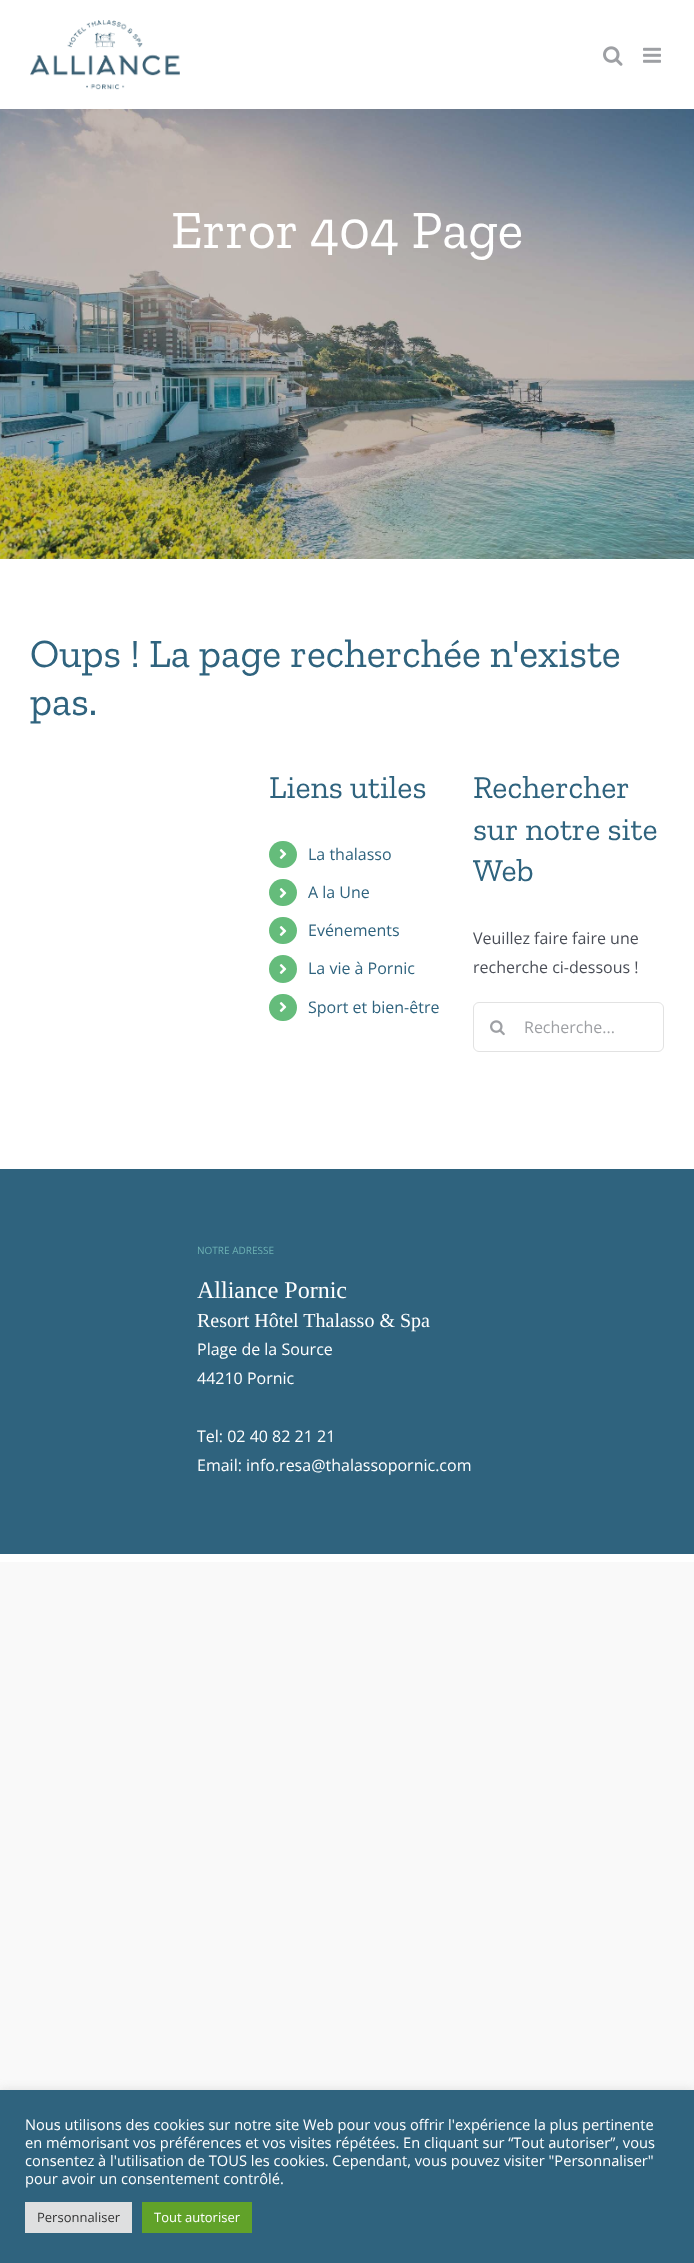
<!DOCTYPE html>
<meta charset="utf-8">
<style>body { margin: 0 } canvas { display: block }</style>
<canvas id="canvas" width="694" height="2263"></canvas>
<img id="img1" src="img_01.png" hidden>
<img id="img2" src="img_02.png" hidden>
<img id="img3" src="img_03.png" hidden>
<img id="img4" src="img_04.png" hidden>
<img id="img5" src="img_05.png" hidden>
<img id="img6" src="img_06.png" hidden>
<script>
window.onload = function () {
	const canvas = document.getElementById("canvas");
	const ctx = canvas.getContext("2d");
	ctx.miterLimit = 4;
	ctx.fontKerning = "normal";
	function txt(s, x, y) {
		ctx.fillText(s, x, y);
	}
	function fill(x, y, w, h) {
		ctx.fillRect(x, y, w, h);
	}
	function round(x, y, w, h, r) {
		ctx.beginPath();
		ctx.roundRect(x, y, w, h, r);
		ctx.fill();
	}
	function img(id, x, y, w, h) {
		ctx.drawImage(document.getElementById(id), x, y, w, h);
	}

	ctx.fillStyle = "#F9F9F9";
	fill(0, 0, 694, 2263);
	ctx.fillStyle = "#FFFFFF";
	fill(0, 0, 694, 1562);
	img("img1", 30, 20, 150, 70);
	img("img2", 603, 46, 20, 20);
	img("img3", 643, 47, 18, 16);
	img("img4", 0, 109, 694, 450);
	ctx.fillStyle = "#65BC7B";
	round(269, 841, 28, 27, 13.5);
	img("img5", 279, 849, 8, 10);
	round(269, 879, 28, 27, 13.5);
	img("img5", 279, 888, 8, 10);
	round(269, 917, 28, 27, 13.5);
	img("img5", 279, 926, 8, 10);
	ctx.beginPath();
	ctx.arc(283, 969, 14, 0, Math.PI * 2);
	ctx.fill();
	img("img5", 279, 964, 8, 10);
	round(269, 994, 28, 27, 13.5);
	img("img5", 279, 1002, 8, 10);
	ctx.beginPath();
	ctx.roundRect(473.5, 1002.5, 190, 49, 5.5);
	ctx.strokeStyle = "#E2E2E2";
	ctx.stroke();
	img("img6", 490, 1020, 15, 16);
	ctx.fillStyle = "#2F637E";
	fill(0, 1169, 694, 385);
	ctx.fillStyle = "rgba(172, 171, 171, 0.3)";
	ctx.filter = "blur(5px)";
	ctx.beginPath();
	ctx.rect(0, 2089, 694, 173);
	ctx.fill();
	ctx.filter = "none";
	ctx.fillStyle = "#2F637E";
	fill(0, 2090, 694, 173);
	ctx.fillStyle = "#DEDFE0";
	fill(25, 2202, 107, 31);
	ctx.fillStyle = "#61A229";
	fill(142, 2202, 110, 31);
	ctx.font = "54px Zilla Slab";
	ctx.fillStyle = "#FFFFFF";
	txt("Error 404 Page", 171, 248);
	ctx.font = "40px Zilla Slab";
	ctx.fillStyle = "#2F637E";
	txt("Oups ! La page recherchée n'existe", 30, 667);
	txt("pas.", 30, 715);
	ctx.font = "32px Zilla Slab";
	txt("Liens utiles", 269, 798);
	ctx.font = "16px Open Sans";
	txt("La thalasso", 308, 860);
	txt("A la Une", 308, 898);
	txt("Evénements", 308, 936);
	txt("La vie à Pornic", 308, 974);
	txt("Sport et bien-être", 308, 1013);
	ctx.font = "32px Zilla Slab";
	txt("Rechercher", 473, 798);
	txt("sur notre site", 473, 840);
	txt("Web", 473, 881);
	ctx.font = "16px Open Sans";
	ctx.fillStyle = "#4A4E57";
	txt("Veuillez faire faire une", 473, 944);
	txt("recherche ci-dessous !", 473, 973);
	ctx.fillStyle = "#9EA0A4";
	txt("Recherche...", 524, 1033);
	ctx.font = "10px Open Sans";
	ctx.fillStyle = "#6DB1B4";
	txt("NOTRE ADRESSE", 197, 1254);
	ctx.font = "24px Liberation Serif";
	ctx.fillStyle = "#FFFFFF";
	txt("Alliance Pornic", 197, 1298);
	ctx.font = "20px Liberation Serif";
	txt("Resort Hôtel Thalasso & Spa", 197, 1327);
	ctx.font = "16px Open Sans";
	txt("Plage de la Source", 197, 1355);
	txt("44210 Pornic", 197, 1384);
	txt("Tel: 02 40 82 21 21", 197, 1442);
	txt("Email: info.resa@thalassopornic.com", 197, 1471);
	ctx.font = "14.65px Open Sans";
	txt("Nous utilisons des cookies sur notre site Web pour vous offrir l'expérience la plus pertinente", 25, 2130);
	txt("en mémorisant vos préférences et vos visites répétées. En cliquant sur “Tout autoriser”, vous", 25, 2148);
	txt("consentez à l'utilisation de TOUS les cookies. Cependant, vous pouvez visiter \"Personnaliser\"", 25, 2166);
	txt("pour avoir un consentement contrôlé.", 25, 2184);
	ctx.font = "13px Open Sans";
	ctx.fillStyle = "#333333";
	txt("Personnaliser", 37, 2222);
	ctx.fillStyle = "#FFFFFF";
	txt("Tout autoriser", 154, 2222);
};
</script>
